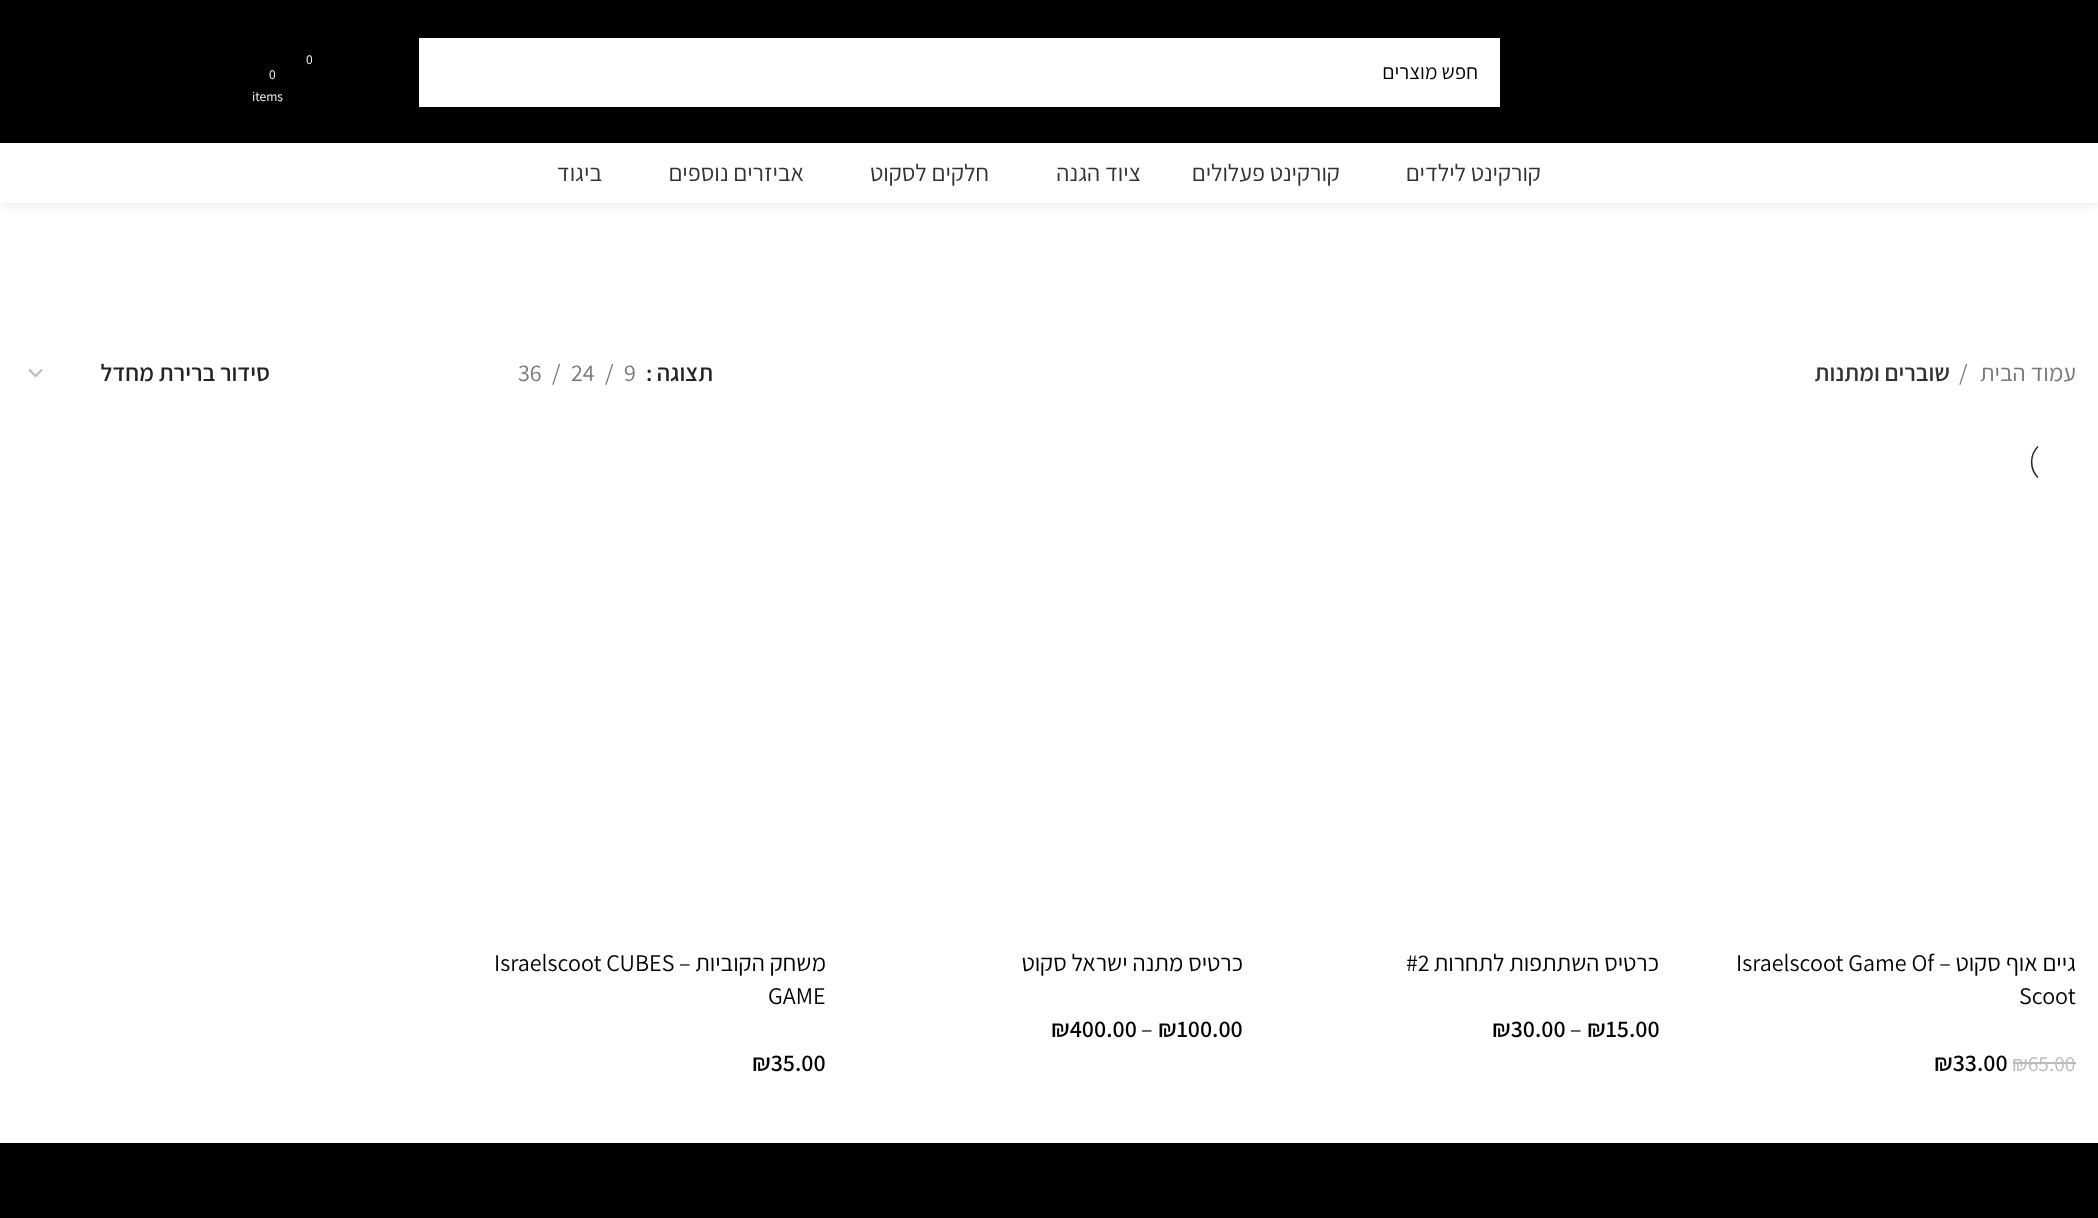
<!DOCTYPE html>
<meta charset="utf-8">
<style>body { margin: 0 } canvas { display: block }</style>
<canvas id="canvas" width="2098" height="1218"></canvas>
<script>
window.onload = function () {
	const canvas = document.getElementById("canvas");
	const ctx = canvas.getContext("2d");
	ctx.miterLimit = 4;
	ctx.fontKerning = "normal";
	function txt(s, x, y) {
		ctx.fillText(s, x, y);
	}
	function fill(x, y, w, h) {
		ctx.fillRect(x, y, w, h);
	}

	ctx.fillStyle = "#FFFFFF";
	fill(0, 0, 2098, 1218);
	ctx.fillStyle = "#000000";
	fill(0, 0, 2098, 143);
	ctx.fillStyle = "#FFFFFF";
	fill(419, 38, 1081, 69);
	ctx.fillStyle = "rgba(0, 0, 0, 0.1)";
	ctx.filter = "blur(6px)";
	ctx.beginPath();
	ctx.rect(0, 144, 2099, 60);
	ctx.fill();
	ctx.filter = "none";
	ctx.fillStyle = "#FFFFFF";
	fill(0, 143, 2098, 60);
	ctx.beginPath();
	ctx.moveTo(29, 369.5);
	ctx.lineTo(35.5, 376);
	ctx.lineTo(42, 369.5);
	ctx.strokeStyle = "#BBBBBB";
	ctx.lineWidth = 2.2;
	ctx.stroke();
	ctx.beginPath();
	ctx.moveTo(2038, 477.5);
	ctx.bezierCurveTo(2029.5, 469, 2029.5, 455, 2038, 446.5);
	ctx.strokeStyle = "#242424";
	ctx.lineWidth = 1.5;
	ctx.stroke();
	ctx.fillStyle = "#BBBBBB";
	fill(2013, 1062, 63, 2);
	ctx.fillStyle = "#000000";
	fill(0, 1143, 2098, 75);
	ctx.direction = "rtl";
	ctx.font = "21px Assistant";
	txt("חפש מוצרים", 1478, 79);
	ctx.direction = "ltr";
	ctx.font = "13.5px Assistant";
	ctx.fillStyle = "#FFFFFF";
	txt("0", 306, 64);
	txt("0", 269, 79);
	txt("items", 252, 101);
	ctx.direction = "rtl";
	ctx.font = "24px Assistant";
	ctx.fillStyle = "#333333";
	txt("קורקינט לילדים", 1541, 181);
	txt("קורקינט פעלולים", 1340, 181);
	txt("ציוד הגנה", 1141, 181);
	txt("חלקים לסקוט", 989, 181);
	txt("אביזרים נוספים", 804, 181);
	txt("ביגוד", 602, 181);
	ctx.fillStyle = "#777777";
	txt("עמוד הבית", 2076, 381);
	ctx.direction = "ltr";
	txt("/", 1959, 381);
	ctx.direction = "rtl";
	ctx.font = "600 24px Assistant";
	ctx.fillStyle = "#333333";
	txt("שוברים ומתנות", 1950, 381);
	ctx.fillStyle = "#242424";
	txt("תצוגה", 713, 381);
	ctx.direction = "ltr";
	txt(":", 646, 381);
	ctx.font = "24px Assistant";
	ctx.fillStyle = "#777777";
	txt("9", 624, 381);
	txt("/", 605, 381);
	txt("24", 571, 381);
	txt("/", 552, 381);
	txt("36", 518, 381);
	ctx.direction = "rtl";
	ctx.font = "600 24px Assistant";
	ctx.fillStyle = "#242424";
	txt("סידור ברירת מחדל", 270, 381);
	ctx.font = "24px Assistant";
	ctx.fillStyle = "#000000";
	txt("גיים אוף סקוט –", 2076, 971);
	ctx.direction = "ltr";
	txt("Israelscoot Game Of", 1736, 971);
	txt("Scoot", 2019, 1004);
	ctx.font = "21.5px Assistant";
	ctx.fillStyle = "#BBBBBB";
	txt("₪65.00", 2012, 1071);
	ctx.font = "600 24px Assistant";
	ctx.fillStyle = "#000000";
	txt("₪33.00", 1934, 1071);
	ctx.direction = "rtl";
	ctx.font = "24px Assistant";
	txt("כרטיס השתתפות לתחרות", 1659, 971);
	ctx.direction = "ltr";
	txt("#2", 1406, 971);
	ctx.font = "600 24px Assistant";
	txt("₪15.00", 1587, 1037);
	ctx.font = "24px Assistant";
	txt("–", 1570, 1037);
	ctx.font = "600 24px Assistant";
	txt("₪30.00", 1492, 1037);
	ctx.direction = "rtl";
	ctx.font = "24px Assistant";
	txt("כרטיס מתנה ישראל סקוט", 1243, 971);
	ctx.direction = "ltr";
	ctx.font = "600 24px Assistant";
	txt("₪100.00", 1158, 1037);
	ctx.font = "24px Assistant";
	txt("–", 1141, 1037);
	ctx.font = "600 24px Assistant";
	txt("₪400.00", 1051, 1037);
	ctx.direction = "rtl";
	ctx.font = "24px Assistant";
	txt("משחק הקוביות –", 826, 971);
	ctx.direction = "ltr";
	txt("Israelscoot CUBES", 494, 971);
	txt("GAME", 768, 1004);
	ctx.font = "600 24px Assistant";
	txt("₪35.00", 752, 1071);
};
</script>
